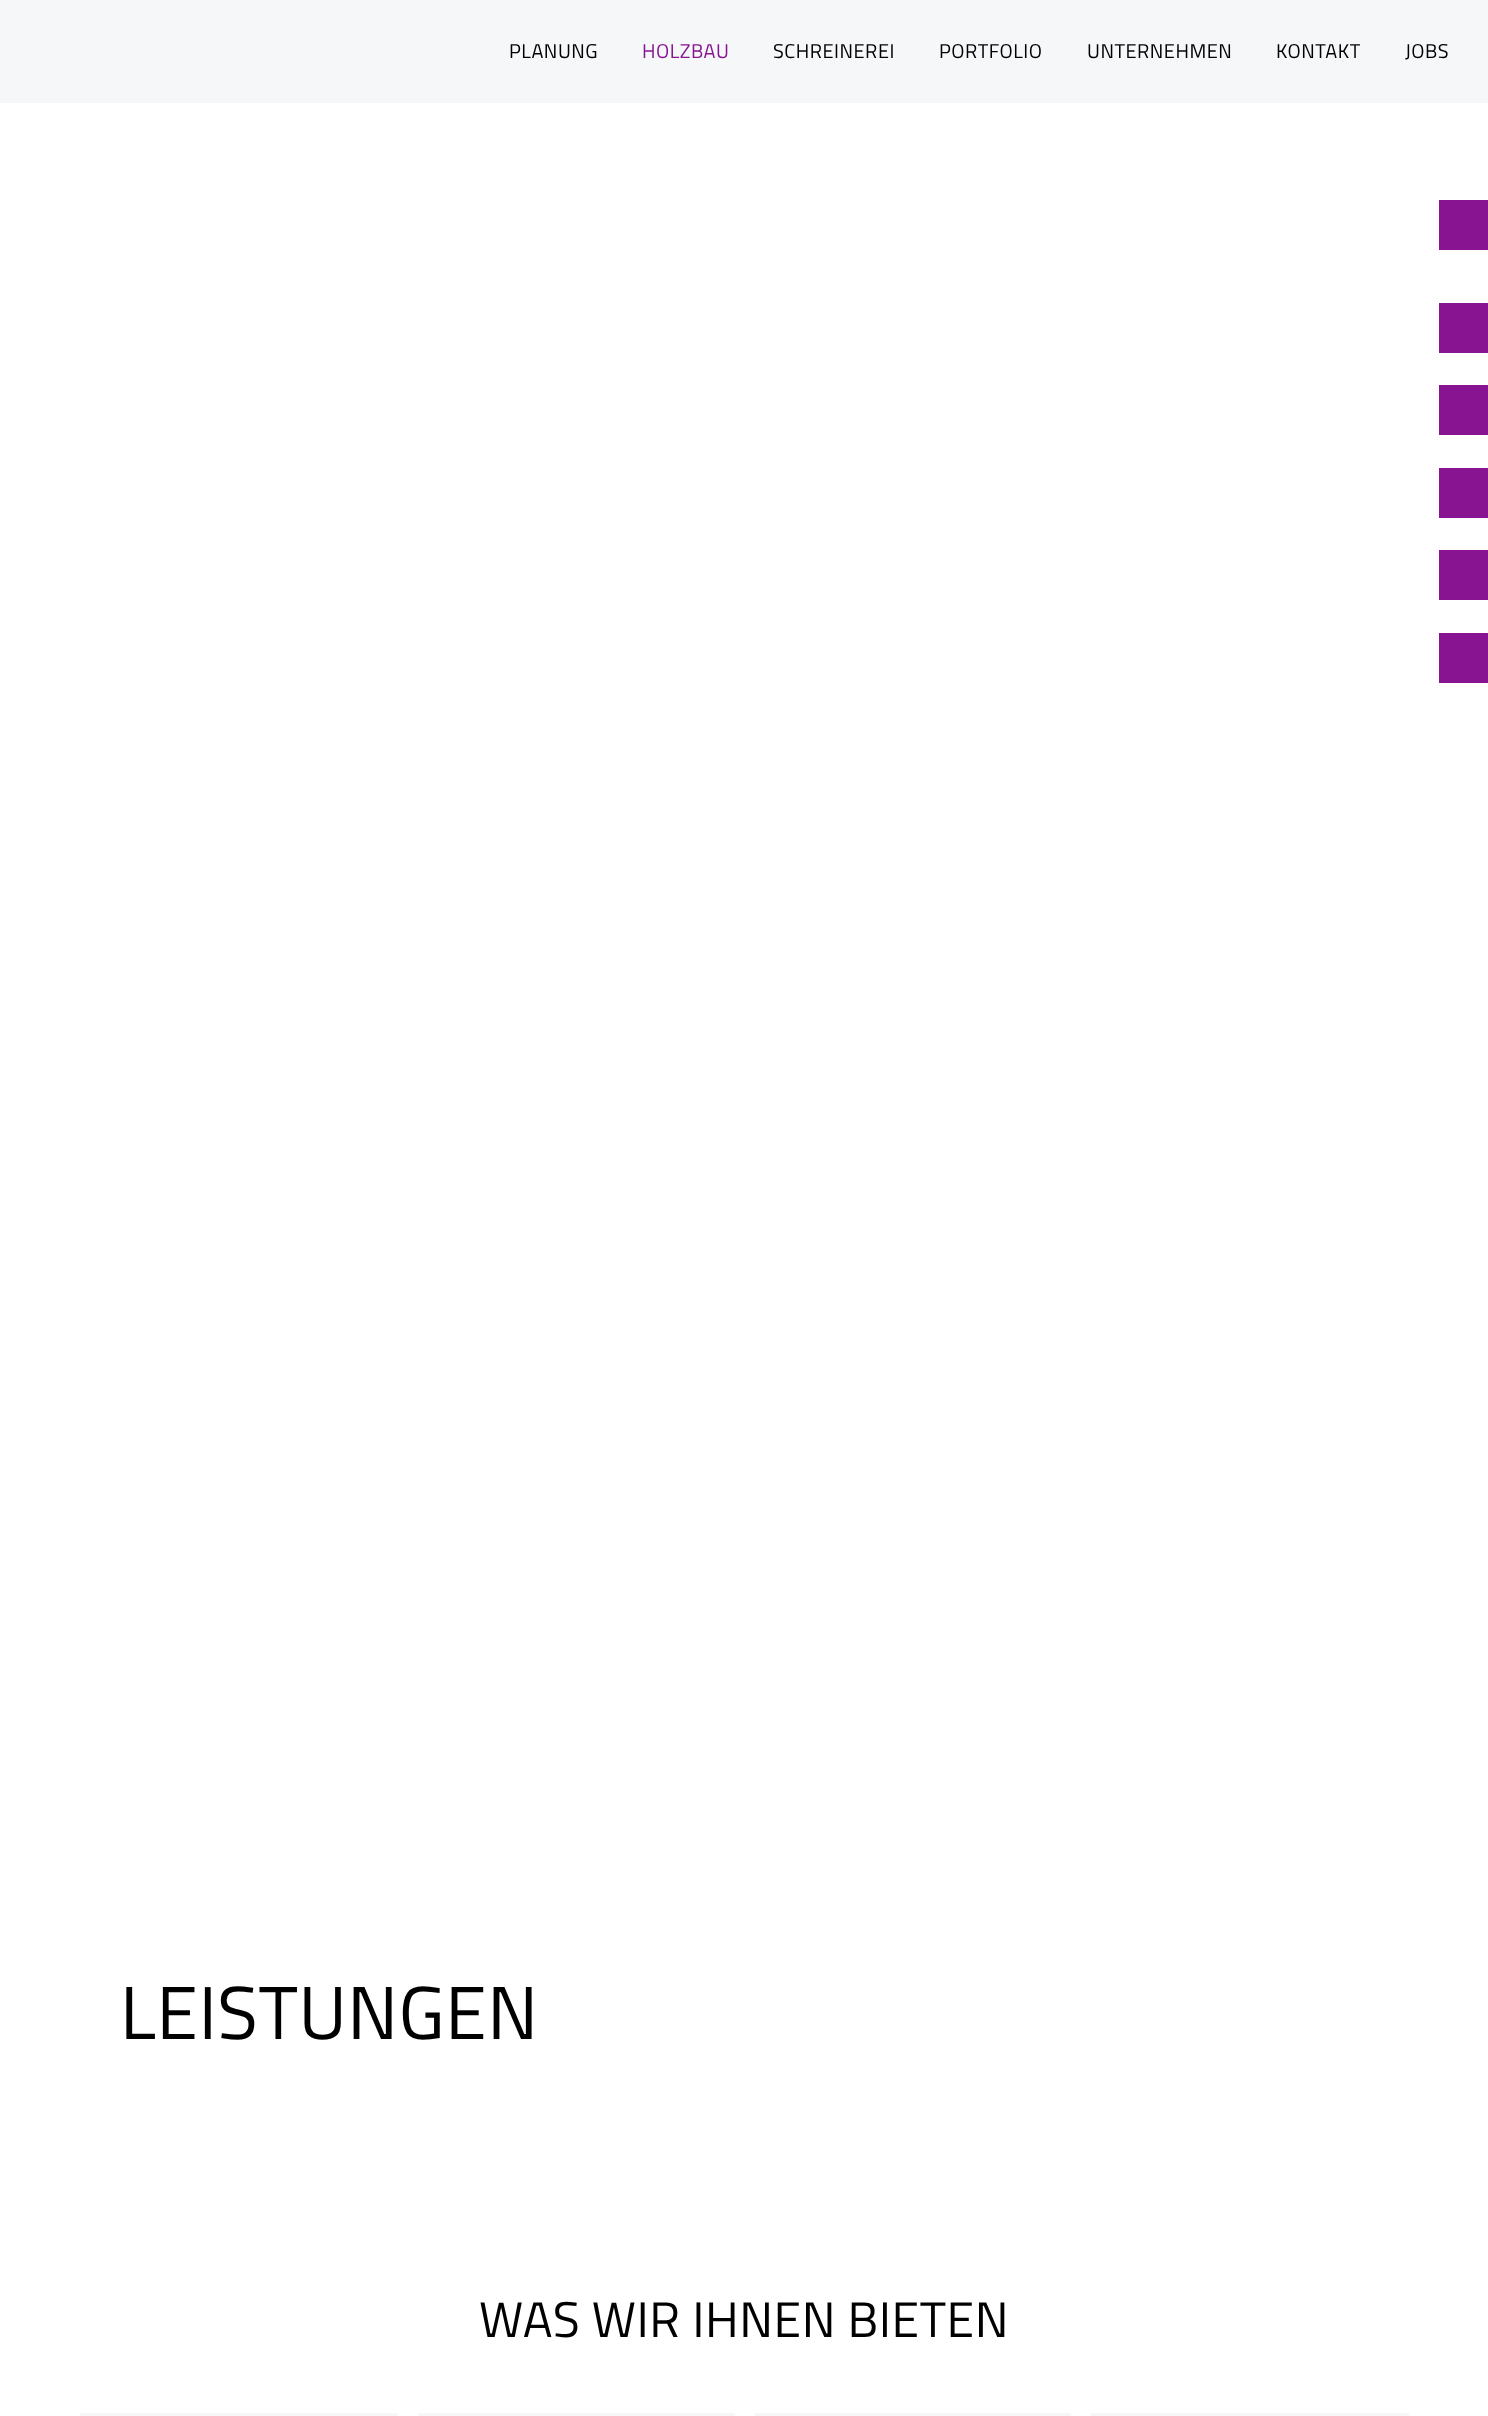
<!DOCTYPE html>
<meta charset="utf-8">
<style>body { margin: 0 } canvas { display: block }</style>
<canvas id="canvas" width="1488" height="2416"></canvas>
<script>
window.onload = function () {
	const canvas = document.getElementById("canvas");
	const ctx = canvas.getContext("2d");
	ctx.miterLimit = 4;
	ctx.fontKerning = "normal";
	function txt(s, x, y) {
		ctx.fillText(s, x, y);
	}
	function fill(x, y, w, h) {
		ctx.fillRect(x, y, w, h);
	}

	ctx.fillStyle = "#FFFFFF";
	fill(0, 0, 1488, 2416);
	ctx.fillStyle = "#F5F7F8";
	fill(0, 0, 1488, 103);
	ctx.fillStyle = "#891492";
	fill(1439, 200, 49, 50);
	fill(1439, 303, 49, 50);
	fill(1439, 385, 49, 50);
	fill(1439, 468, 49, 50);
	fill(1439, 550, 49, 50);
	fill(1439, 633, 49, 50);
	ctx.fillStyle = "#F5F7F8";
	fill(80, 2413, 318, 3);
	fill(418, 2413, 317, 3);
	fill(755, 2413, 316, 3);
	fill(1091, 2413, 318, 3);
	ctx.letterSpacing = "0.5px";
	ctx.font = "20px Titillium Web";
	ctx.fillStyle = "#000000";
	txt("PLANUNG", 509, 58);
	ctx.fillStyle = "#891492";
	txt("HOLZBAU", 642, 58);
	ctx.fillStyle = "#000000";
	txt("SCHREINEREI", 773, 58);
	txt("PORTFOLIO", 939, 58);
	txt("UNTERNEHMEN", 1087, 58);
	txt("KONTAKT", 1276, 58);
	txt("JOBS", 1405, 58);
	ctx.font = "75px Titillium Web";
	txt("LEISTUNGEN", 120, 2039);
	ctx.font = "50px Titillium Web";
	txt("WAS WIR IHNEN BIETEN", 479, 2337);
};
</script>
